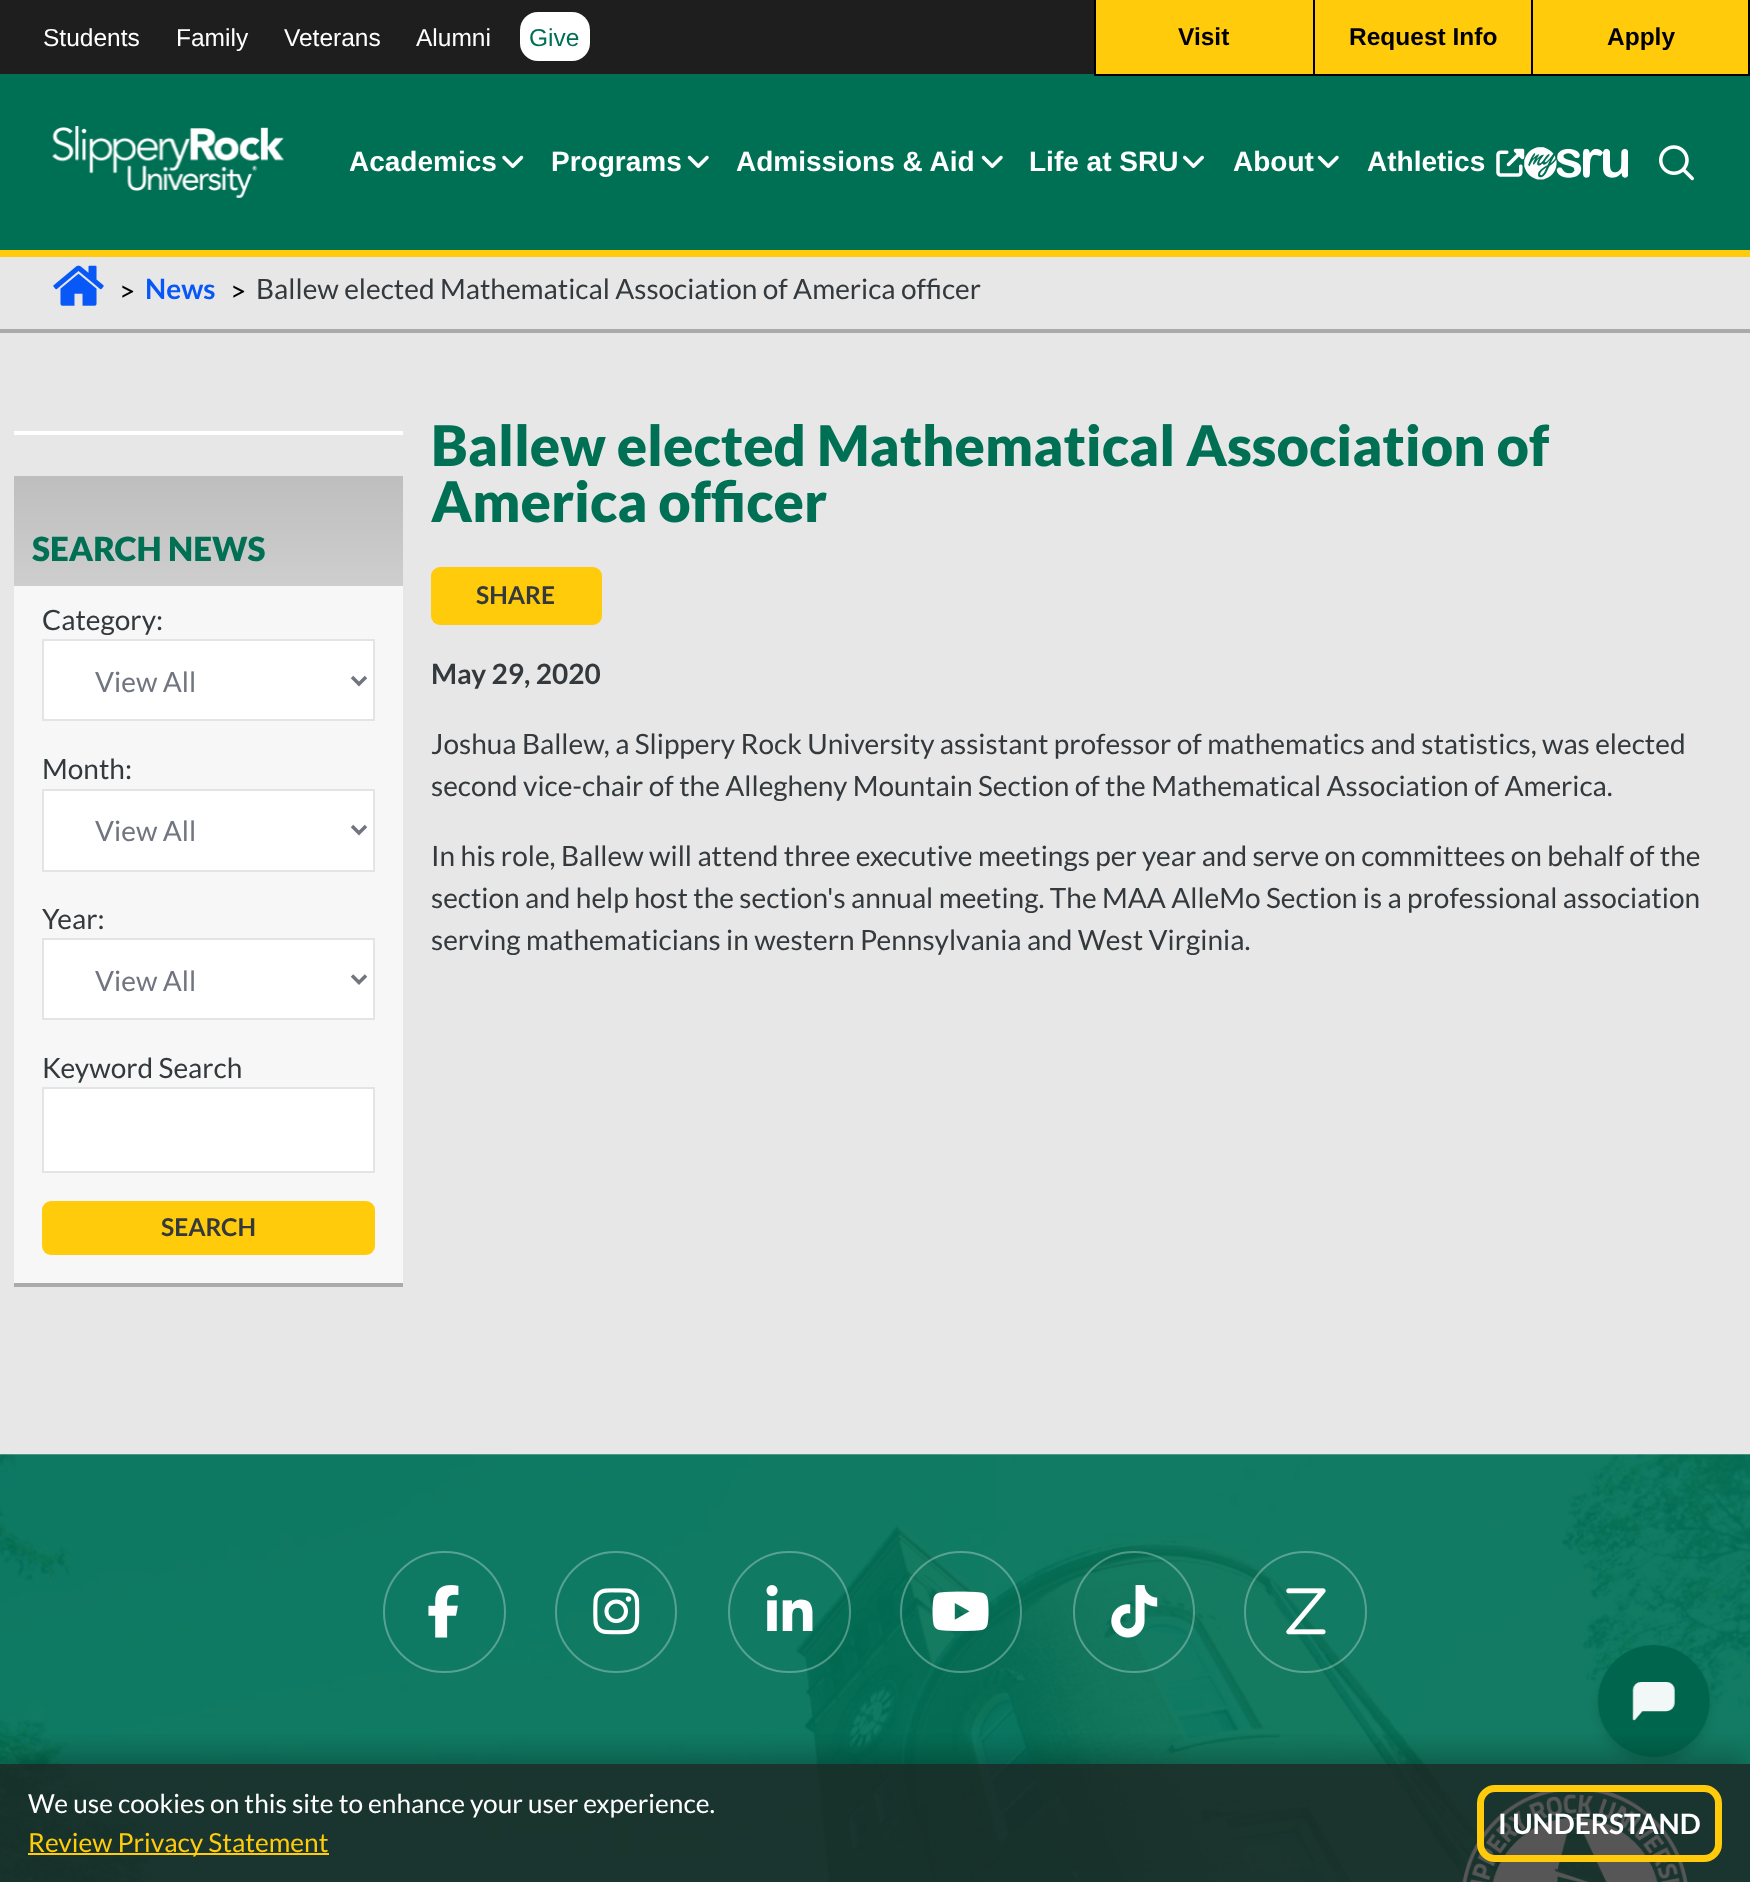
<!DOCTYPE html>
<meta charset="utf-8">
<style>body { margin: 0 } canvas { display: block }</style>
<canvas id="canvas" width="1750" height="1882"></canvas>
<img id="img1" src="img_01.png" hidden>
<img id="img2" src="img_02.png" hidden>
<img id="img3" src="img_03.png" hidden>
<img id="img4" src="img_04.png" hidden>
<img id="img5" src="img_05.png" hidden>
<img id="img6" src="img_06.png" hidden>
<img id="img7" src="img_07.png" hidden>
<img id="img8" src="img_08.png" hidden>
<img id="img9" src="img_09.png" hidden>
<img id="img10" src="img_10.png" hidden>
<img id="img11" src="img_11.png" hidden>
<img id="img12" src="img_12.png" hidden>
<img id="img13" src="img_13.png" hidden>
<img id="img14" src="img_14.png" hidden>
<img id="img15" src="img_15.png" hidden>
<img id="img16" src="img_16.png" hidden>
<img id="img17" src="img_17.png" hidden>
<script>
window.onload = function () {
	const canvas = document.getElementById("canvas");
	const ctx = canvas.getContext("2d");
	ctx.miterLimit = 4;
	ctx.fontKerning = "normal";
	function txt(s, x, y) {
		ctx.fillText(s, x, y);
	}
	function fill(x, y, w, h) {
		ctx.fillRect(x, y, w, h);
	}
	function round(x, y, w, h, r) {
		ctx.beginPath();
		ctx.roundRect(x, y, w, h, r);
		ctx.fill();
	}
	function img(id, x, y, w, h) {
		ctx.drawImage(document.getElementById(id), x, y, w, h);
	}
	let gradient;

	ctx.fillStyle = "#FFFFFF";
	fill(0, 0, 1750, 1882);
	ctx.fillStyle = "#007055";
	fill(0, 74, 1750, 176);
	ctx.fillStyle = "#FFCB0B";
	fill(0, 250, 1750, 7);
	ctx.fillStyle = "#1E1E1E";
	fill(0, 0, 1094, 74);
	ctx.fillStyle = "#FFFFFF";
	round(520, 12, 70, 49, 18);
	ctx.fillStyle = "#FFCB0B";
	fill(1096, 0, 217, 74);
	ctx.fillStyle = "#000000";
	fill(1094, 74, 437, 2);
	fill(1094, 0, 2, 75);
	ctx.fillStyle = "#FFCB0B";
	fill(1315, 0, 216, 74);
	ctx.fillStyle = "#000000";
	fill(1313, 0, 2, 75);
	ctx.fillStyle = "#FFCB0B";
	fill(1533, 0, 215, 74);
	ctx.fillStyle = "#000000";
	fill(1748, 0, 2, 75);
	fill(1531, 74, 219, 2);
	fill(1531, 0, 2, 75);
	img("img1", 52, 126, 232, 72);
	img("img2", 502, 155, 22, 13);
	img("img3", 687, 155, 22, 13);
	img("img3", 981, 155, 22, 13);
	img("img4", 1183, 155, 21, 13);
	img("img3", 1317, 155, 22, 13);
	img("img5", 1496, 148, 29, 29);
	img("img6", 1524, 147, 104, 33);
	img("img7", 1659, 145, 35, 36);
	ctx.fillStyle = "#E7E7E7";
	fill(0, 257, 1750, 1197);
	ctx.fillStyle = "#AAAAAA";
	fill(0, 329, 1750, 4);
	img("img8", 53, 265, 51, 41);
	ctx.fillStyle = "#FFFFFF";
	fill(14, 431, 389, 4);
	gradient = ctx.createLinearGradient(208, 476, 208, 586);
	gradient.addColorStop(0, "#BEBEBE");
	gradient.addColorStop(1, "#CECECE");
	ctx.fillStyle = gradient;
	fill(14, 476, 389, 110);
	ctx.fillStyle = "#F7F7F7";
	fill(14, 586, 389, 697);
	ctx.fillStyle = "#AAAAAA";
	fill(14, 1283, 389, 4);
	ctx.fillStyle = "#FFFFFF";
	ctx.beginPath();
	ctx.rect(43, 640, 331, 80);
	ctx.fill();
	ctx.strokeStyle = "#E4E4E4";
	ctx.lineWidth = 2;
	ctx.stroke();
	ctx.beginPath();
	ctx.moveTo(352, 677);
	ctx.lineTo(359, 684);
	ctx.lineTo(366, 677);
	ctx.strokeStyle = "#717580";
	ctx.lineWidth = 3.5;
	ctx.stroke();
	ctx.beginPath();
	ctx.rect(43, 790, 331, 81);
	ctx.fill();
	ctx.strokeStyle = "#E4E4E4";
	ctx.lineWidth = 2;
	ctx.stroke();
	ctx.beginPath();
	ctx.moveTo(352, 826);
	ctx.lineTo(359, 833);
	ctx.lineTo(366, 826);
	ctx.strokeStyle = "#717580";
	ctx.lineWidth = 3.5;
	ctx.stroke();
	ctx.beginPath();
	ctx.rect(43, 939, 331, 80);
	ctx.fill();
	ctx.strokeStyle = "#E4E4E4";
	ctx.lineWidth = 2;
	ctx.stroke();
	ctx.beginPath();
	ctx.moveTo(352, 975.5);
	ctx.lineTo(359, 982.5);
	ctx.lineTo(366, 975.5);
	ctx.strokeStyle = "#717580";
	ctx.lineWidth = 3.5;
	ctx.stroke();
	ctx.beginPath();
	ctx.rect(43, 1088, 331, 84);
	ctx.fill();
	ctx.strokeStyle = "#E4E4E4";
	ctx.lineWidth = 2;
	ctx.stroke();
	ctx.fillStyle = "#FFCB0B";
	round(42, 1201, 333, 54, 9);
	round(431, 567, 171, 58, 9);
	img("img9", 0, 1454, 1750, 428);
	ctx.beginPath();
	ctx.roundRect(384, 1552, 121, 120, 60);
	ctx.strokeStyle = "#57A292";
	ctx.stroke();
	img("img10", 428, 1585, 31, 53);
	ctx.beginPath();
	ctx.arc(616, 1612, 60, 0, Math.PI * 2);
	ctx.stroke();
	img("img11", 593, 1588, 47, 47);
	ctx.beginPath();
	ctx.roundRect(729, 1552, 121, 120, 60);
	ctx.strokeStyle = "rgba(255, 255, 255, 0.3)";
	ctx.stroke();
	img("img12", 766, 1585, 47, 46);
	ctx.beginPath();
	ctx.arc(961, 1612, 60, 0, Math.PI * 2);
	ctx.stroke();
	img("img13", 932, 1591, 57, 40);
	ctx.beginPath();
	ctx.arc(1134, 1612, 60, 0, Math.PI * 2);
	ctx.stroke();
	img("img14", 1111, 1585, 47, 53);
	ctx.beginPath();
	ctx.roundRect(1245, 1552, 121, 120, 60);
	ctx.stroke();
	img("img15", 1286, 1588, 40, 47);
	img("img16", 1462, 1792, 226, 90);
	ctx.fillStyle = "rgba(0, 0, 0, 0.1)";
	ctx.filter = "blur(5px)";
	ctx.beginPath();
	ctx.roundRect(1598, 1652, 112, 112, 56);
	ctx.fill();
	ctx.filter = "none";
	img("img17", 1597, 1645, 113, 112);
	ctx.save();
	ctx.beginPath();
	ctx.rect(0, 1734, 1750, 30);
	ctx.clip();
	ctx.fillStyle = "rgba(0, 0, 0, 0.25)";
	ctx.filter = "blur(14px)";
	ctx.beginPath();
	ctx.rect(0, 1754, 1750, 119);
	ctx.fill();
	ctx.filter = "none";
	ctx.restore();
	ctx.fillStyle = "rgba(30, 30, 30, 0.75)";
	fill(0, 1764, 1750, 118);
	ctx.fillStyle = "#FFCB0B";
	fill(28, 1853, 301, 2);
	ctx.beginPath();
	ctx.roundRect(1480.5, 1788.5, 238, 70, 14.5);
	ctx.strokeStyle = "#FFCB0B";
	ctx.lineWidth = 7;
	ctx.stroke();
	ctx.font = "24.5px Liberation Sans";
	ctx.fillStyle = "#FFFFFF";
	txt("Students", 43, 46);
	txt("Family", 176, 46);
	txt("Veterans", 284, 46);
	txt("Alumni", 416, 46);
	ctx.fillStyle = "#007055";
	txt("Give", 529, 46);
	ctx.font = "bold 24.5px Liberation Sans";
	ctx.fillStyle = "#000000";
	txt("Visit", 1178, 45);
	txt("Request Info", 1349, 45);
	txt("Apply", 1607, 45);
	ctx.font = "bold 28px Liberation Sans";
	ctx.fillStyle = "#FFFFFF";
	txt("Academics", 349, 171);
	txt("Programs", 551, 171);
	txt("Admissions & Aid", 736, 171);
	txt("Life at SRU", 1029, 171);
	txt("About", 1233, 171);
	txt("Athletics", 1367, 171);
	ctx.font = "28px Lato";
	ctx.fillStyle = "#000000";
	txt(">", 119, 301);
	ctx.font = "bold 28px Lato";
	ctx.fillStyle = "#0858F7";
	txt("News", 145, 299);
	ctx.font = "28px Lato";
	ctx.fillStyle = "#000000";
	txt(">", 230, 301);
	ctx.fillStyle = "#33393C";
	txt("Ballew elected Mathematical Association of America officer", 256, 299);
	ctx.font = "900 33.25px Lato";
	ctx.fillStyle = "#007055";
	txt("SEARCH NEWS", 32, 561);
	ctx.font = "28px Lato";
	ctx.fillStyle = "#33393C";
	txt("Category:", 42, 630);
	ctx.fillStyle = "#717580";
	txt("View All", 95, 692);
	ctx.fillStyle = "#33393C";
	txt("Month:", 42, 779);
	ctx.fillStyle = "#717580";
	txt("View All", 95, 841);
	ctx.fillStyle = "#33393C";
	txt("Year:", 42, 929);
	ctx.fillStyle = "#717580";
	txt("View All", 95, 991);
	ctx.fillStyle = "#33393C";
	txt("Keyword Search", 42, 1078);
	ctx.font = "bold 24.5px Lato";
	txt("SEARCH", 161, 1236);
	ctx.font = "900 56px Lato";
	ctx.fillStyle = "#007055";
	txt("Ballew elected Mathematical Association of", 431, 466);
	txt("America officer", 431, 522);
	ctx.font = "bold 24.5px Lato";
	ctx.fillStyle = "#33393C";
	txt("SHARE", 476, 604);
	ctx.font = "bold 28px Lato";
	txt("May 29, 2020", 431, 684);
	ctx.font = "28px Lato";
	txt("Joshua Ballew, a Slippery Rock University assistant professor of mathematics and statistics, was elected", 431, 754);
	txt("second vice-chair of the Allegheny Mountain Section of the Mathematical Association of America.", 431, 796);
	txt("In his role, Ballew will attend three executive meetings per year and serve on committees on behalf of the", 431, 866);
	txt("section and help host the section's annual meeting. The MAA AlleMo Section is a professional association", 431, 908);
	txt("serving mathematicians in western Pennsylvania and West Virginia.", 431, 950);
	ctx.font = "26.25px Lato";
	ctx.fillStyle = "#FFFFFF";
	txt("We use cookies on this site to enhance your user experience.", 28, 1813);
	ctx.fillStyle = "#FFCB0B";
	txt("Review Privacy Statement", 28, 1852);
	ctx.font = "bold 28px Lato";
	ctx.fillStyle = "#FFFFFF";
	txt("I UNDERSTAND", 1498, 1834);
};
</script>
